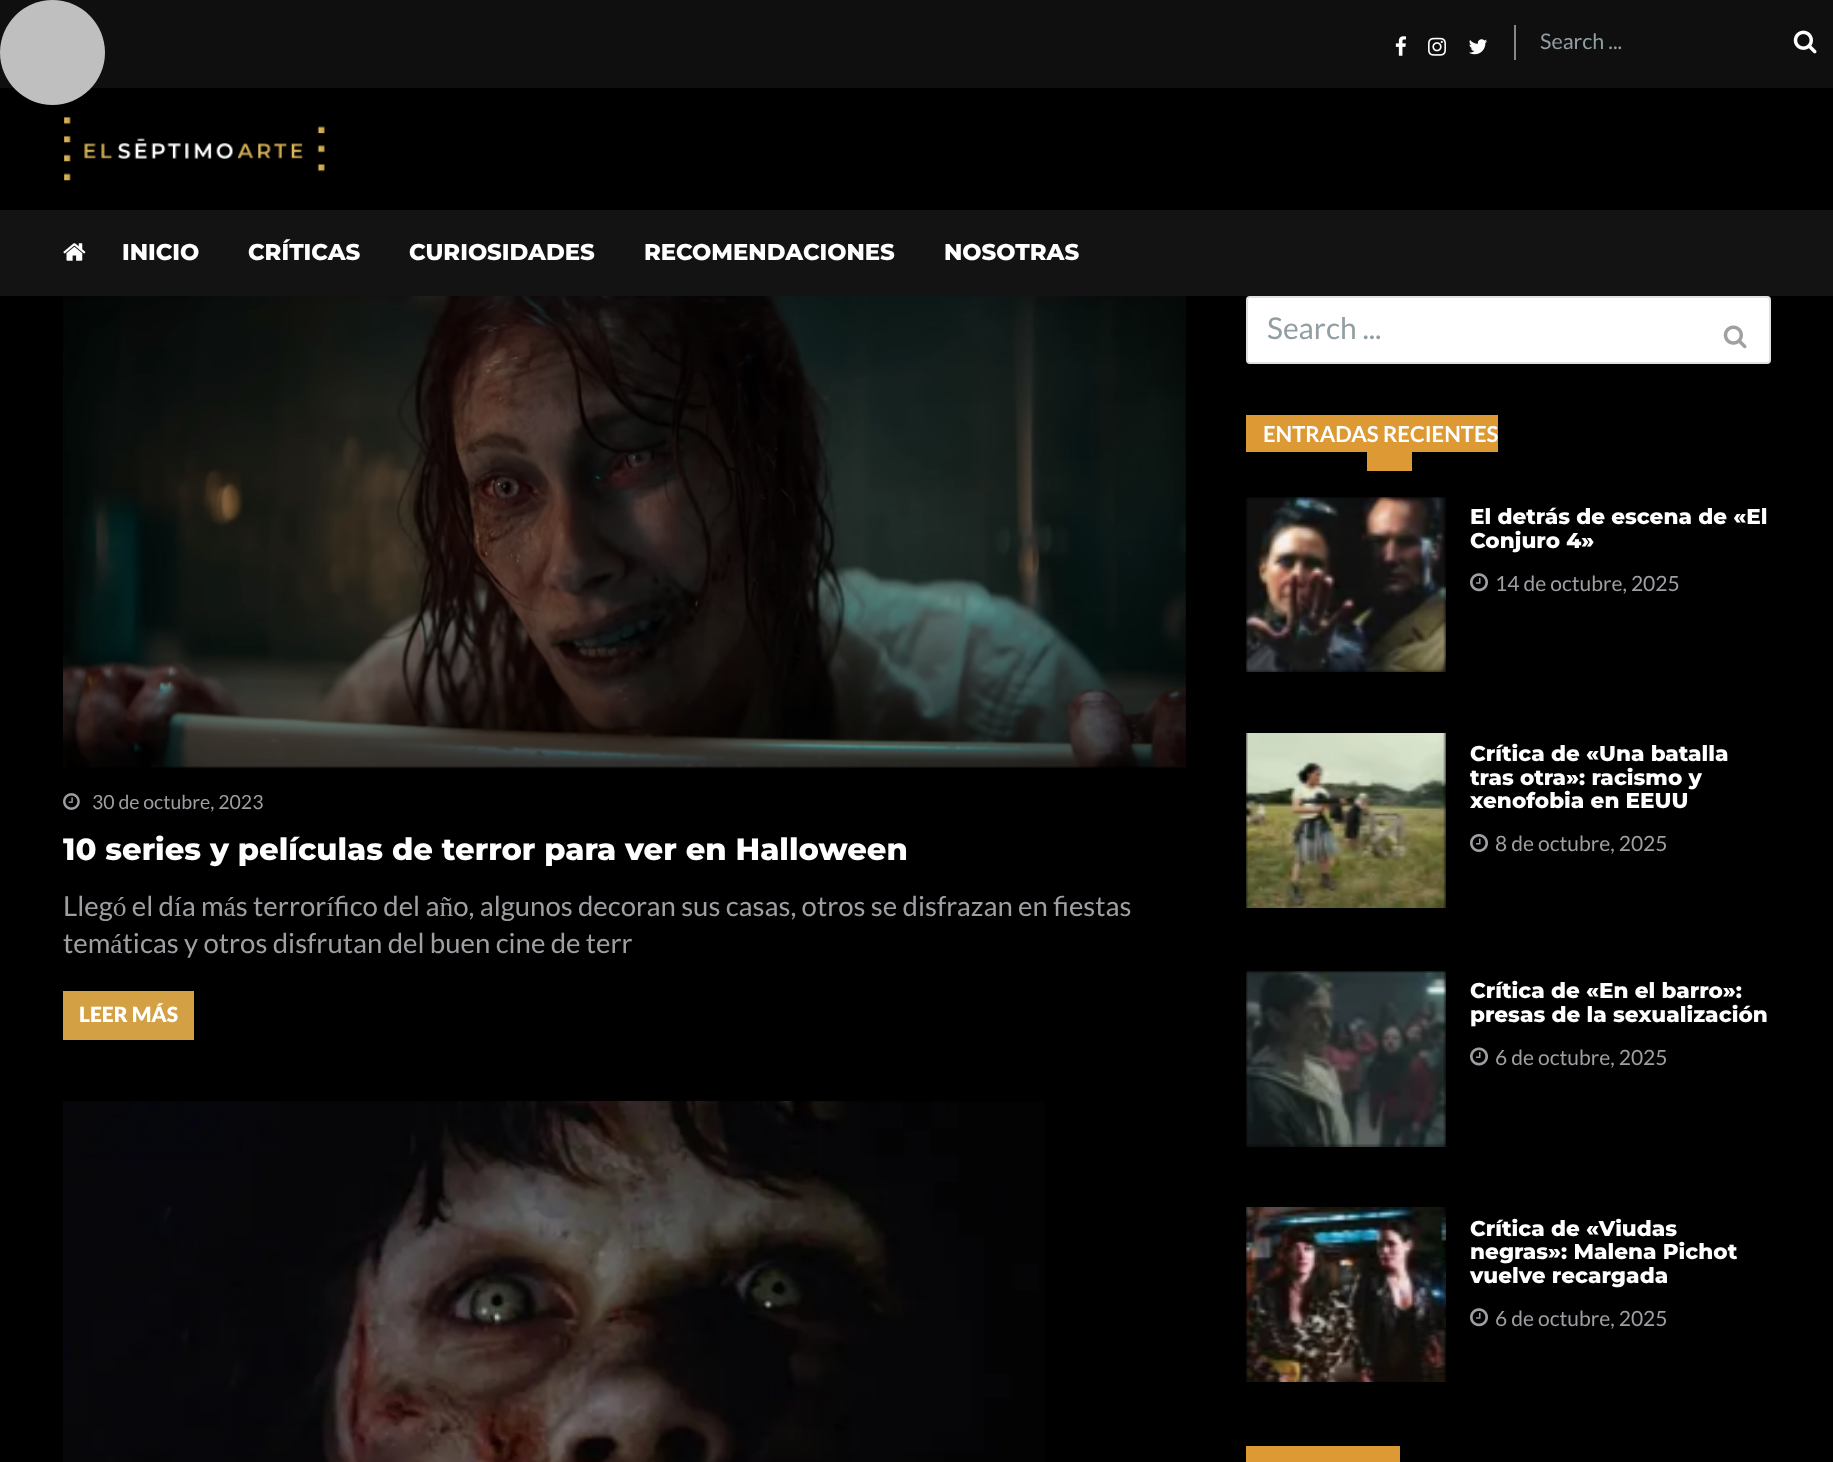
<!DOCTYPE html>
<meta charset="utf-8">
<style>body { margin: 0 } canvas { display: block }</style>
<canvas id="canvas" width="1833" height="1462"></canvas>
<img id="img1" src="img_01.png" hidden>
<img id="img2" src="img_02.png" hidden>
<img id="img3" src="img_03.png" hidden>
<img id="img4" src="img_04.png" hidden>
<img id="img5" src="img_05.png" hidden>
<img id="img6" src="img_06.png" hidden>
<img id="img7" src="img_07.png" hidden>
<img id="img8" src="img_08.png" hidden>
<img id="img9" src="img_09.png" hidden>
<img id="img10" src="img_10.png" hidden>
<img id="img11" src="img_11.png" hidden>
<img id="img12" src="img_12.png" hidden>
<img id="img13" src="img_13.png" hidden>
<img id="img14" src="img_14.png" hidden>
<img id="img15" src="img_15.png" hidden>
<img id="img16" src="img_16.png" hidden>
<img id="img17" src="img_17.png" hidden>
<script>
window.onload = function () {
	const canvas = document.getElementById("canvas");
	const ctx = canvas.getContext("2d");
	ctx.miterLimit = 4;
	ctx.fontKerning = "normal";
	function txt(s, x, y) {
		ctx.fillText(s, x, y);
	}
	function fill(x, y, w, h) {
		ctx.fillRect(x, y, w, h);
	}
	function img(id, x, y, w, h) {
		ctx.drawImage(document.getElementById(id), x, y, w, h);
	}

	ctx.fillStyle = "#000000";
	fill(0, 0, 1833, 1462);
	ctx.fillStyle = "#0F0F0F";
	fill(0, 0, 1833, 88);
	ctx.fillStyle = "#BFBFBF";
	ctx.beginPath();
	ctx.arc(52.5, 52.5, 52.5, 0, Math.PI * 2);
	ctx.fill();
	img("img1", 1395, 36, 11, 20);
	img("img2", 1428, 37, 18, 19);
	img("img3", 1469, 39, 19, 16);
	ctx.fillStyle = "#878787";
	fill(1514, 25, 2, 35);
	img("img4", 1793, 30, 24, 24);
	img("img5", 64, 117, 261, 64);
	ctx.fillStyle = "#131313";
	fill(0, 210, 1833, 86);
	img("img6", 63, 243, 23, 18);
	img("img7", 63, 296, 1123, 473);
	img("img8", 63, 793, 17, 17);
	ctx.fillStyle = "#D3A043";
	fill(63, 991, 131, 49);
	img("img9", 63, 1101, 982, 361);
	ctx.fillStyle = "#FFFFFF";
	ctx.beginPath();
	ctx.roundRect(1247, 297, 523, 66, 3);
	ctx.fill();
	ctx.strokeStyle = "#E1E1E1";
	ctx.lineWidth = 2;
	ctx.stroke();
	img("img10", 1723, 325, 24, 24);
	ctx.fillStyle = "#DD9933";
	fill(1246, 415, 252, 37);
	fill(1367, 452, 45, 19);
	img("img11", 1246, 497, 200, 175);
	img("img12", 1470, 573, 18, 19);
	img("img13", 1246, 733, 200, 175);
	img("img14", 1470, 834, 18, 18);
	img("img15", 1246, 971, 200, 176);
	img("img16", 1470, 1047, 18, 19);
	img("img17", 1246, 1207, 200, 175);
	img("img12", 1470, 1308, 18, 19);
	fill(1246, 1446, 154, 16);
	ctx.font = "21.5px Lato";
	ctx.fillStyle = "#919EA3";
	txt("Search ...", 1540, 49);
	ctx.font = "800 22.75px Montserrat";
	ctx.fillStyle = "#FFFFFF";
	txt("INICIO", 122, 260);
	txt("CRÍTICAS", 248, 260);
	txt("CURIOSIDADES", 409, 260);
	txt("RECOMENDACIONES", 644, 260);
	txt("NOSOTRAS", 944, 260);
	ctx.font = "19.5px Lato";
	ctx.fillStyle = "#A09EA3";
	txt("30 de octubre, 2023", 92, 809);
	ctx.font = "800 30.6px Montserrat";
	ctx.fillStyle = "#FFFFFF";
	txt("10 series y películas de terror para ver en Halloween", 63, 860);
	ctx.font = "27.55px Lato";
	ctx.fillStyle = "#A09EA3";
	txt("Llegó el día más terrorífico del año, algunos decoran sus casas, otros se disfrazan en fiestas", 63, 916);
	txt("temáticas y otros disfrutan del buen cine de terr", 63, 953);
	ctx.font = "900 21px Lato";
	ctx.fillStyle = "#FFFFFF";
	txt("LEER MÁS", 79, 1022);
	ctx.font = "30px Lato";
	ctx.fillStyle = "#919EA3";
	txt("Search ...", 1267, 339);
	ctx.font = "bold 22px Lato";
	ctx.fillStyle = "#FFFFFF";
	txt("ENTRADAS RECIENTES", 1263, 442);
	ctx.font = "800 21.5px Montserrat";
	txt("El detrás de escena de «El", 1470, 524);
	txt("Conjuro 4»", 1470, 548);
	ctx.font = "21px Lato";
	ctx.fillStyle = "#A09EA3";
	txt("14 de octubre, 2025", 1495, 591);
	ctx.font = "800 21.5px Montserrat";
	ctx.fillStyle = "#FFFFFF";
	txt("Crítica de «Una batalla", 1470, 761);
	txt("tras otra»: racismo y", 1470, 785);
	txt("xenofobia en EEUU", 1470, 808);
	ctx.font = "21px Lato";
	ctx.fillStyle = "#A09EA3";
	txt("8 de octubre, 2025", 1495, 851);
	ctx.font = "800 21.5px Montserrat";
	ctx.fillStyle = "#FFFFFF";
	txt("Crítica de «En el barro»:", 1470, 998);
	txt("presas de la sexualización", 1470, 1022);
	ctx.font = "21px Lato";
	ctx.fillStyle = "#A09EA3";
	txt("6 de octubre, 2025", 1495, 1065);
	ctx.font = "800 21.5px Montserrat";
	ctx.fillStyle = "#FFFFFF";
	txt("Crítica de «Viudas", 1470, 1236);
	txt("negras»: Malena Pichot", 1470, 1259);
	txt("vuelve recargada", 1470, 1283);
	ctx.font = "21px Lato";
	ctx.fillStyle = "#A09EA3";
	txt("6 de octubre, 2025", 1495, 1326);
};
</script>
